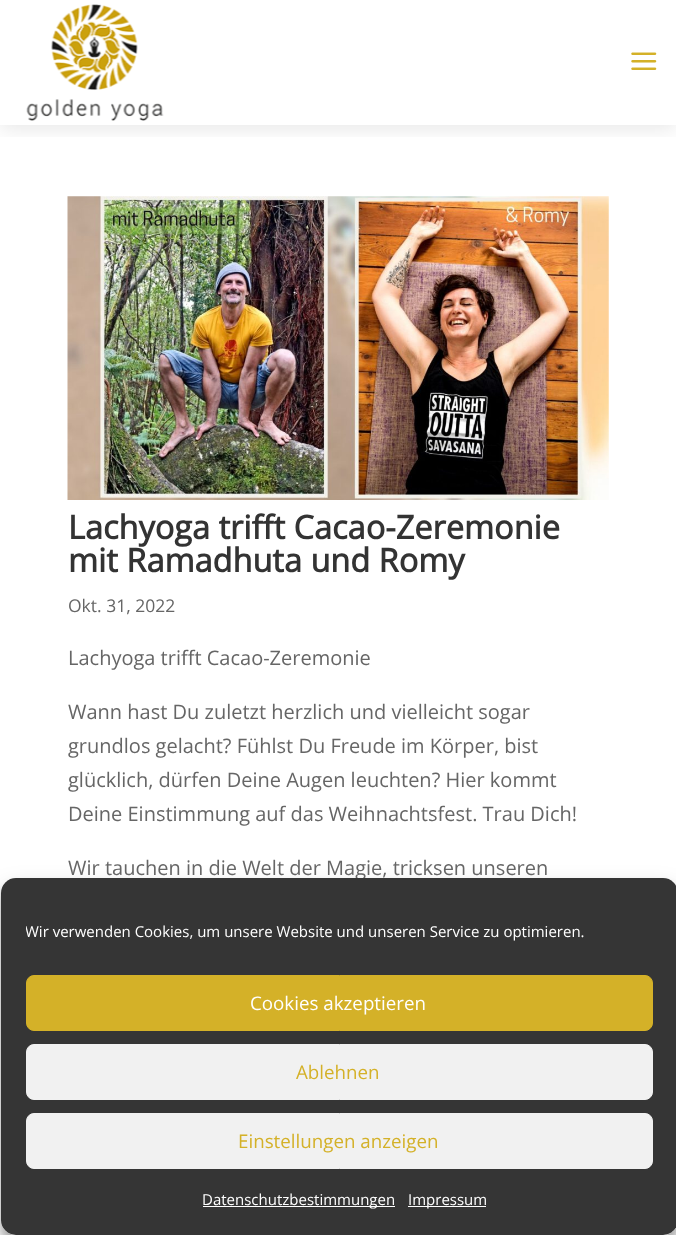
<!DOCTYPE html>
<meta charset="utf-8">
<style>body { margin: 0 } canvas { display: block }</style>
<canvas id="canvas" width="676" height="1235"></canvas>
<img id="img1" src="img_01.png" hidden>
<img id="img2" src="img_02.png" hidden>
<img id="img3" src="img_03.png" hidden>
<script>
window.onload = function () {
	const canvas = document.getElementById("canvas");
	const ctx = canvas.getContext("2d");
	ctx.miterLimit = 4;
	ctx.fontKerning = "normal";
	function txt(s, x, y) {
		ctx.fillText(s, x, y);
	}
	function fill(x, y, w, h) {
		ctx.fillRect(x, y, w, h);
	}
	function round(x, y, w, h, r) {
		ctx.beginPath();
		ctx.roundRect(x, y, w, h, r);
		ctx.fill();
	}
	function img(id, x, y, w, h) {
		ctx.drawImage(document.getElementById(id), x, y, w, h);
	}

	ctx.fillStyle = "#FFFFFF";
	fill(0, 0, 676, 1235);
	ctx.save();
	ctx.beginPath();
	ctx.rect(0, 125, 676, 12);
	ctx.clip();
	ctx.fillStyle = "rgba(0, 0, 0, 0.1)";
	ctx.filter = "blur(10.5px)";
	ctx.beginPath();
	ctx.rect(0, 3, 676, 125);
	ctx.fill();
	ctx.filter = "none";
	ctx.restore();
	img("img1", 26, 4, 138, 117);
	img("img2", 631, 52, 26, 18);
	img("img3", 67, 196, 542, 304);
	ctx.save();
	ctx.beginPath();
	ctx.moveTo(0, 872);
	ctx.lineTo(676, 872);
	ctx.lineTo(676, 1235);
	ctx.lineTo(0, 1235);
	ctx.closePath();
	ctx.moveTo(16, 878);
	ctx.lineTo(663, 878);
	ctx.bezierCurveTo(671.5, 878, 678, 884.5, 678, 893);
	ctx.lineTo(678, 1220);
	ctx.bezierCurveTo(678, 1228.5, 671.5, 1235, 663, 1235);
	ctx.lineTo(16, 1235);
	ctx.bezierCurveTo(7.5, 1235, 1, 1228.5, 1, 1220);
	ctx.lineTo(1, 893);
	ctx.bezierCurveTo(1, 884.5, 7.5, 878, 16, 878);
	ctx.closePath();
	ctx.clip("evenodd");
	ctx.fillStyle = "rgba(0, 0, 0, 0.23)";
	ctx.filter = "blur(4px)";
	ctx.beginPath();
	ctx.roundRect(1, 885, 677, 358, 15);
	ctx.fill();
	ctx.filter = "none";
	ctx.restore();
	ctx.save();
	ctx.beginPath();
	ctx.moveTo(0, 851);
	ctx.lineTo(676, 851);
	ctx.lineTo(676, 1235);
	ctx.lineTo(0, 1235);
	ctx.closePath();
	ctx.moveTo(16, 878);
	ctx.lineTo(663, 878);
	ctx.bezierCurveTo(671.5, 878, 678, 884.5, 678, 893);
	ctx.lineTo(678, 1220);
	ctx.bezierCurveTo(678, 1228.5, 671.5, 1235, 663, 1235);
	ctx.lineTo(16, 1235);
	ctx.bezierCurveTo(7.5, 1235, 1, 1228.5, 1, 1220);
	ctx.lineTo(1, 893);
	ctx.bezierCurveTo(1, 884.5, 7.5, 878, 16, 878);
	ctx.closePath();
	ctx.clip("evenodd");
	ctx.fillStyle = "rgba(0, 0, 0, 0.19)";
	ctx.filter = "blur(12.5px)";
	ctx.beginPath();
	ctx.roundRect(1, 890, 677, 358, 15);
	ctx.fill();
	ctx.filter = "none";
	ctx.restore();
	ctx.font = "bold 32.5px Open Sans";
	ctx.fillStyle = "#333333";
	txt("Lachyoga trifft Cacao-Zeremonie", 68, 539);
	txt("mit Ramadhuta und Romy", 68, 572);
	ctx.font = "17.5px Open Sans";
	ctx.fillStyle = "#666666";
	txt("Okt. 31, 2022", 68, 612);
	ctx.font = "20px Open Sans";
	txt("Lachyoga trifft Cacao-Zeremonie", 68, 665);
	txt("Wann hast Du zuletzt herzlich und vielleicht sogar", 68, 719);
	txt("grundlos gelacht? Fühlst Du Freude im Körper, bist", 68, 753);
	txt("glücklich, dürfen Deine Augen leuchten? Hier kommt", 68, 787);
	txt("Deine Einstimmung auf das Weihnachtsfest. Trau Dich!", 68, 821);
	txt("Wir tauchen in die Welt der Magie, tricksen unseren", 68, 875);
	ctx.fillStyle = "#353535";
	round(1, 878, 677, 357, 15);
	ctx.save();
	ctx.beginPath();
	ctx.rect(26, 921, 627, 29);
	ctx.clip();
	ctx.font = "15px Open Sans";
	ctx.fillStyle = "#FFFFFF";
	txt("Wir verwenden Cookies, um unsere Website und unseren Service zu optimieren.", 25, 937);
	ctx.restore();
	ctx.fillStyle = "#D4B128";
	ctx.beginPath();
	ctx.roundRect(26.5, 975.5, 626, 55, 7.5);
	ctx.fill();
	ctx.strokeStyle = "#D4B128";
	ctx.stroke();
	ctx.font = "18.75px Open Sans";
	ctx.fillStyle = "#FFFFFF";
	txt("Cookies akzeptieren", 250, 1010);
	ctx.fillStyle = "#F1F1F1";
	ctx.beginPath();
	ctx.roundRect(26.5, 1044.5, 626, 55, 7.5);
	ctx.fill();
	ctx.strokeStyle = "#F1F1F1";
	ctx.stroke();
	ctx.fillStyle = "#D4B128";
	txt("Ablehnen", 296, 1079);
	ctx.fillStyle = "#F1F1F1";
	ctx.beginPath();
	ctx.roundRect(26.5, 1113.5, 626, 55, 7.5);
	ctx.fill();
	ctx.stroke();
	ctx.fillStyle = "#D4B128";
	txt("Einstellungen anzeigen", 238, 1148);
	ctx.fillStyle = "#FFFFFF";
	fill(203, 1206, 192, 1);
	ctx.font = "15px Open Sans";
	txt("Datenschutzbestimmungen", 202, 1205);
	fill(408, 1206, 78, 1);
	txt("Impressum", 408, 1205);
};
</script>
